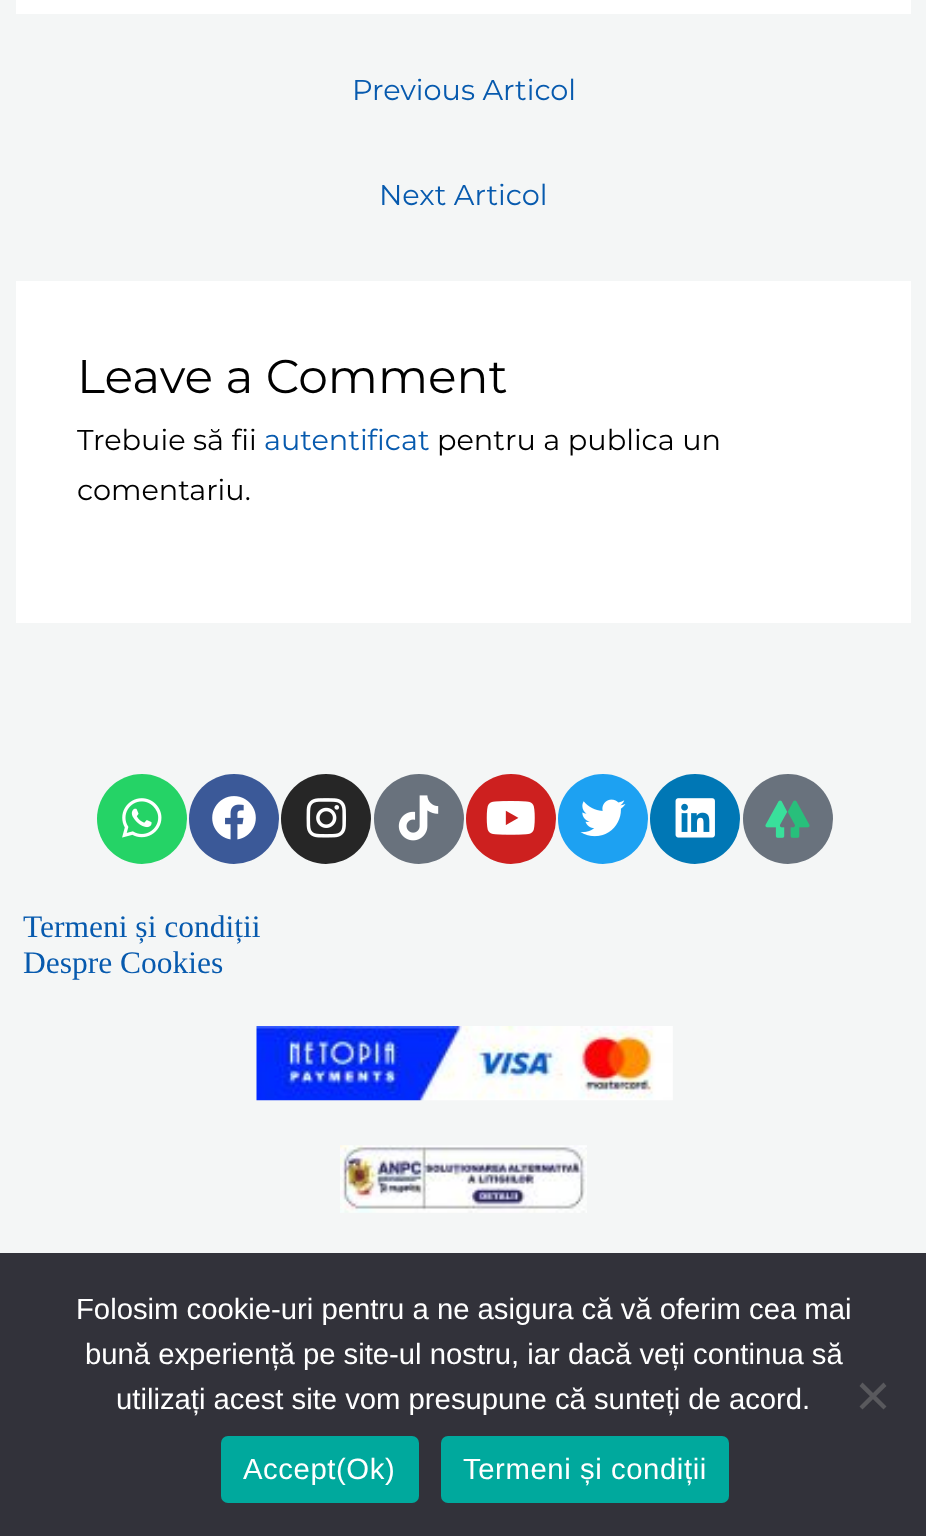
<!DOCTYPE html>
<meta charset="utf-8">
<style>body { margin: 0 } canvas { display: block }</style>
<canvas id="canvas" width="926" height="1536"></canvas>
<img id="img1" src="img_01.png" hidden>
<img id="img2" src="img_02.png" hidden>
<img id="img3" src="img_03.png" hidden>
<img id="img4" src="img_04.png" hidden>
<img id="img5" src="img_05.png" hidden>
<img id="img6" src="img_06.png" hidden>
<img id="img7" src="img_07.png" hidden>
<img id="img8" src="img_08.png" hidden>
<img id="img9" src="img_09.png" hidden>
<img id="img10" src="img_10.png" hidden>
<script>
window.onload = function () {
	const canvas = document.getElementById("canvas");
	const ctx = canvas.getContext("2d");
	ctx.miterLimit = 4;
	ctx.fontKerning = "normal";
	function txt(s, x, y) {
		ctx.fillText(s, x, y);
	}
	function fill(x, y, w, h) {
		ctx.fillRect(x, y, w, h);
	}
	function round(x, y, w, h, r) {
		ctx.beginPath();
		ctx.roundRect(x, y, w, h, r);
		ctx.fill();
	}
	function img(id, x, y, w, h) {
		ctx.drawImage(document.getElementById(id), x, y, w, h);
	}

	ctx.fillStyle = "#F4F6F6";
	fill(0, 0, 926, 1536);
	ctx.fillStyle = "#FFFFFF";
	fill(16, 0, 895, 14);
	fill(16, 281, 895, 342);
	ctx.fillStyle = "#25D366";
	ctx.beginPath();
	ctx.arc(142, 819, 45, 0, Math.PI * 2);
	ctx.fill();
	img("img1", 122, 798, 40, 40);
	ctx.fillStyle = "#3B5998";
	ctx.beginPath();
	ctx.arc(234, 819, 45, 0, Math.PI * 2);
	ctx.fill();
	img("img2", 212, 796, 44, 44);
	ctx.fillStyle = "#262626";
	ctx.beginPath();
	ctx.arc(326, 819, 45, 0, Math.PI * 2);
	ctx.fill();
	img("img3", 306, 798, 40, 40);
	ctx.fillStyle = "#69727D";
	ctx.beginPath();
	ctx.arc(419, 819, 45, 0, Math.PI * 2);
	ctx.fill();
	img("img4", 398, 795, 41, 46);
	ctx.fillStyle = "#CD201F";
	ctx.beginPath();
	ctx.arc(511, 819, 45, 0, Math.PI * 2);
	ctx.fill();
	img("img5", 486, 801, 49, 34);
	ctx.fillStyle = "#1DA1F2";
	ctx.beginPath();
	ctx.arc(603, 819, 45, 0, Math.PI * 2);
	ctx.fill();
	img("img6", 580, 799, 46, 38);
	ctx.fillStyle = "#0077B5";
	ctx.beginPath();
	ctx.arc(695, 819, 45, 0, Math.PI * 2);
	ctx.fill();
	img("img7", 675, 798, 40, 40);
	ctx.fillStyle = "#69727D";
	ctx.beginPath();
	ctx.arc(788, 819, 45, 0, Math.PI * 2);
	ctx.fill();
	img("img8", 765, 800, 45, 38);
	img("img9", 256, 1026, 417, 75);
	img("img10", 340, 1145, 247, 68);
	ctx.fillStyle = "#32323A";
	fill(0, 1253, 926, 283);
	ctx.fillStyle = "#59595D";
	ctx.beginPath();
	ctx.moveTo(883.5, 1382.5);
	ctx.lineTo(886.5, 1386);
	ctx.lineTo(862.5, 1409.5);
	ctx.lineTo(859.5, 1406.5);
	ctx.closePath();
	ctx.fill();
	ctx.beginPath();
	ctx.moveTo(859.5, 1386);
	ctx.lineTo(862.5, 1382.5);
	ctx.lineTo(886.5, 1406.5);
	ctx.lineTo(883.5, 1409.5);
	ctx.closePath();
	ctx.fill();
	ctx.fillStyle = "#00A99D";
	round(221, 1436, 198, 67, 7);
	round(441, 1436, 288, 67, 7);
	ctx.font = "28.75px Montserrat";
	ctx.fillStyle = "#075AAE";
	txt("Previous Articol", 352, 100);
	txt("Next Articol", 379, 205);
	ctx.font = "47.25px Montserrat";
	ctx.fillStyle = "#000000";
	txt("Leave a Comment", 77, 393);
	ctx.font = "28.75px Montserrat";
	txt("Trebuie să fii", 77, 450);
	ctx.fillStyle = "#075AAE";
	txt("autentificat", 264, 450);
	ctx.fillStyle = "#000000";
	txt("pentru a publica un", 437, 450);
	txt("comentariu.", 77, 500);
	ctx.font = "31.5px Liberation Serif";
	ctx.fillStyle = "#075AAE";
	txt("Termeni și condiții", 23, 937);
	txt("Despre Cookies", 23, 973);
	ctx.font = "29.25px Liberation Sans";
	ctx.fillStyle = "#FFFFFF";
	txt("Folosim cookie-uri pentru a ne asigura că vă oferim cea mai", 76, 1319);
	txt("bună experiență pe site-ul nostru, iar dacă veți continua să", 85, 1364);
	txt("utilizați acest site vom presupune că sunteți de acord.", 116, 1409);
	ctx.letterSpacing = "0.6px";
	txt("Accept(Ok)", 243, 1479);
	txt("Termeni și condiții", 463, 1479);
};
</script>
